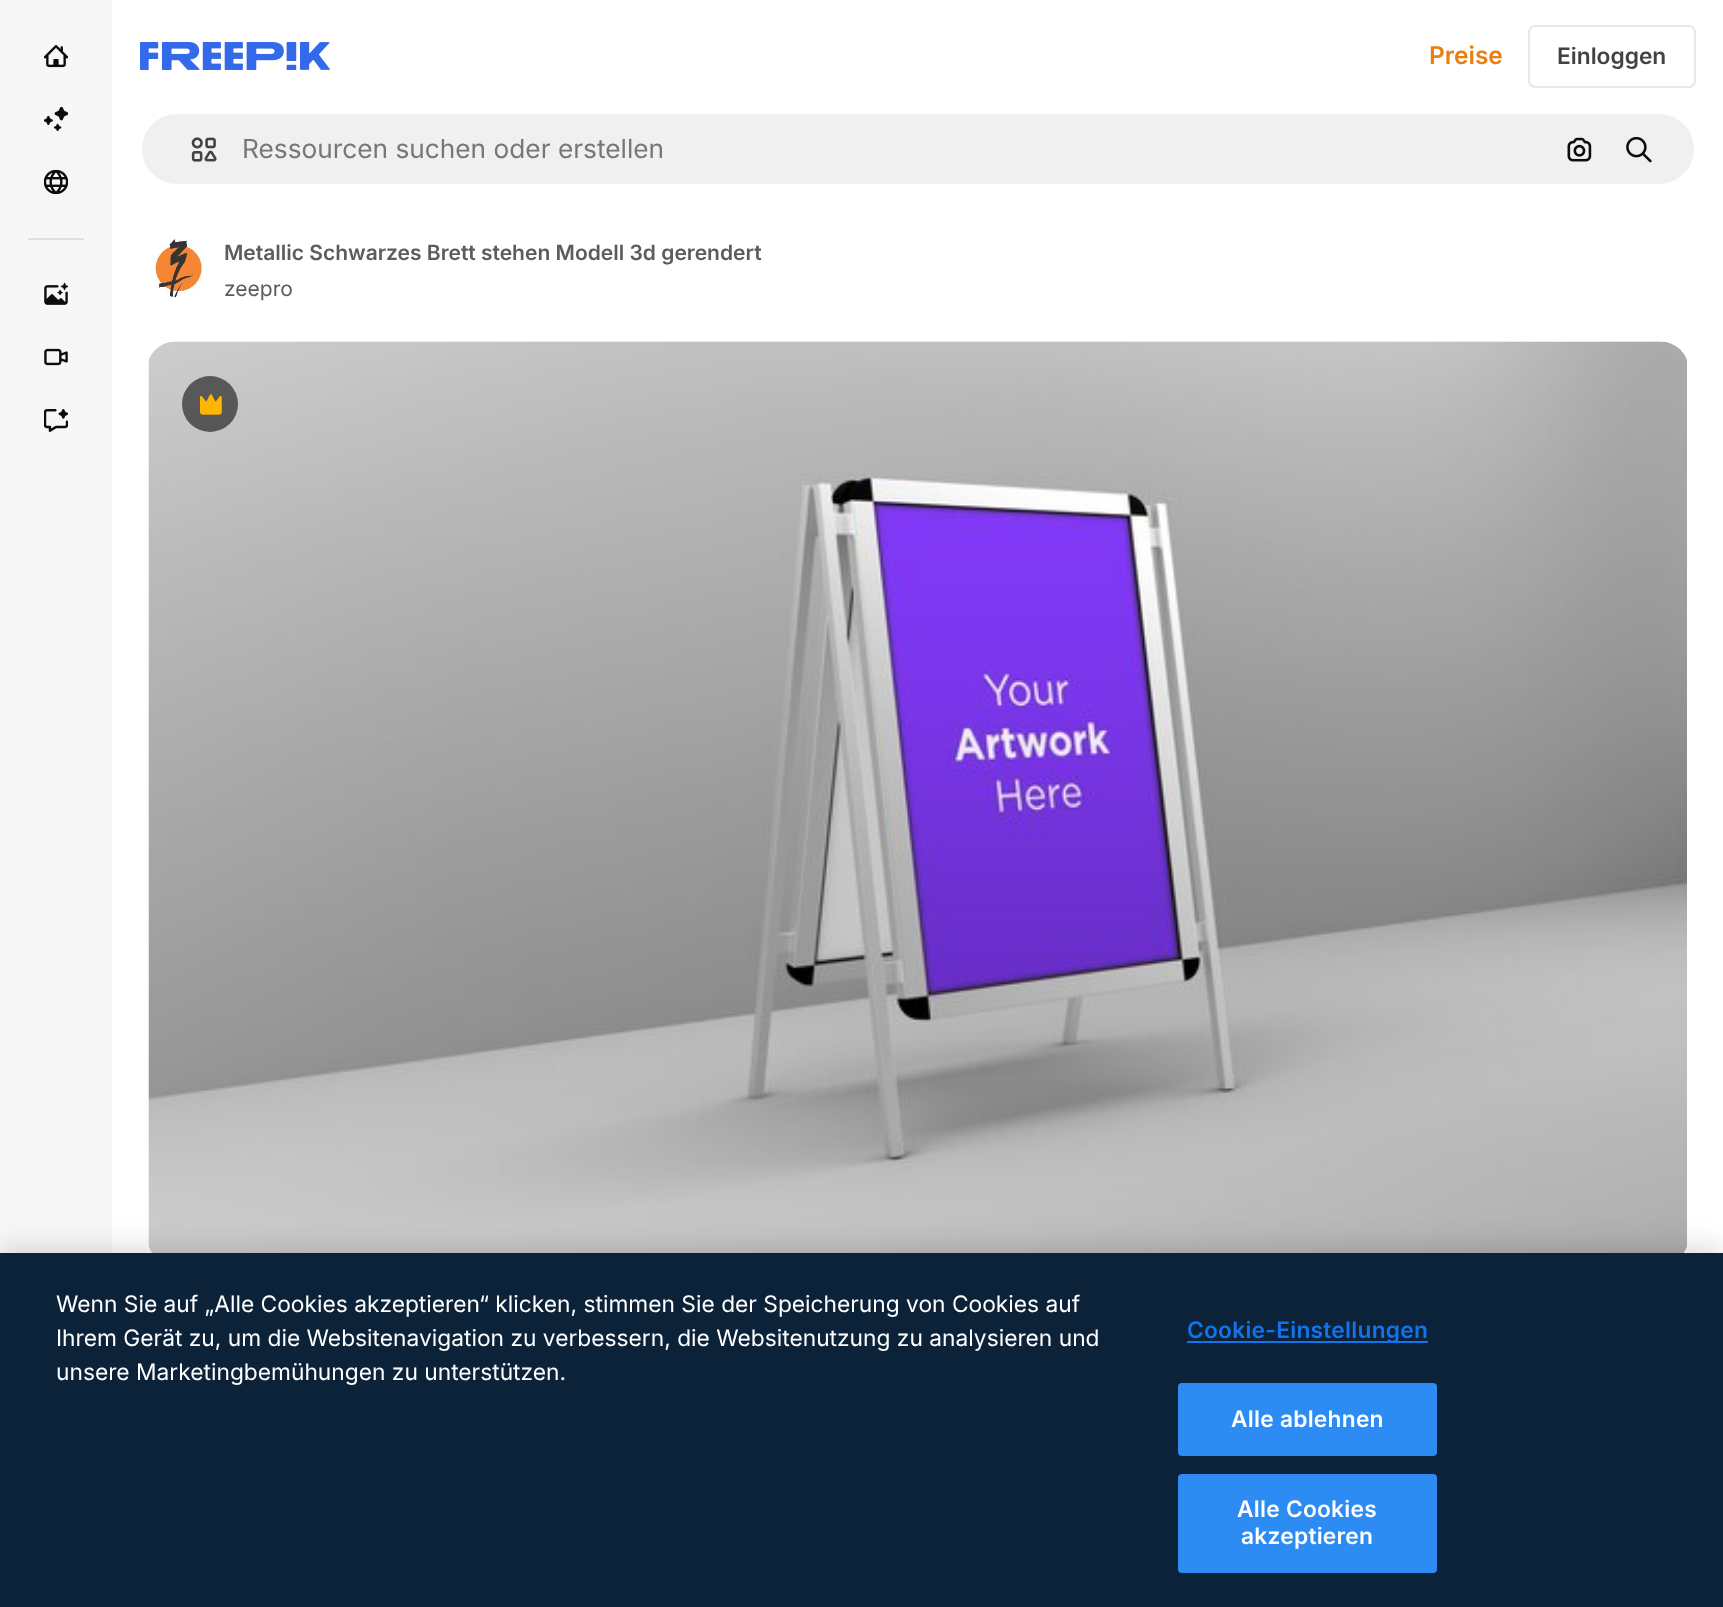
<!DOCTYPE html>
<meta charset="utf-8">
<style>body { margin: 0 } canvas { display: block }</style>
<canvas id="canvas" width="1723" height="1607"></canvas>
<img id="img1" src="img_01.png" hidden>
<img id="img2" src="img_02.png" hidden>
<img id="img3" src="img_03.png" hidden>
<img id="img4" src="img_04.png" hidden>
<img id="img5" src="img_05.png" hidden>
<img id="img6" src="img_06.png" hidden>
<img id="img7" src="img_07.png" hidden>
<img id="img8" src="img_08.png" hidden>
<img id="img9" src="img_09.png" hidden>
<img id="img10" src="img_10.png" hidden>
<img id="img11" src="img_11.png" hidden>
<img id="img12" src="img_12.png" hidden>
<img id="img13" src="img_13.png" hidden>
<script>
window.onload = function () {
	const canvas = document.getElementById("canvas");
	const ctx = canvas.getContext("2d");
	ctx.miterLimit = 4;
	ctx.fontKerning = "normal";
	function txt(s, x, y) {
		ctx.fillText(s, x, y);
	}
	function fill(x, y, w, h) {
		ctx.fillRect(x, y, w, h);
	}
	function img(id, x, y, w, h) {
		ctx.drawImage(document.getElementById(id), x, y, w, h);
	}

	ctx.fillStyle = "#FFFFFF";
	fill(0, 0, 1723, 1607);
	ctx.fillStyle = "#F7F7F7";
	fill(0, 0, 112, 1253);
	img("img1", 44, 45, 24, 23);
	img("img2", 44, 107, 24, 24);
	img("img3", 44, 170, 24, 24);
	ctx.fillStyle = "#E0E0E0";
	fill(28, 238, 56, 2);
	img("img4", 44, 282, 24, 23);
	img("img5", 44, 348, 24, 18);
	img("img6", 44, 409, 24, 23);
	img("img7", 140, 42, 190, 28);
	ctx.beginPath();
	ctx.roundRect(1529, 26, 166, 61, 6);
	ctx.strokeStyle = "#E7E7E7";
	ctx.lineWidth = 2;
	ctx.stroke();
	ctx.fillStyle = "#F0F0F0";
	ctx.beginPath();
	ctx.roundRect(141, 113, 1554, 72, 36);
	ctx.fill();
	ctx.strokeStyle = "#FFFFFF";
	ctx.stroke();
	img("img8", 191, 137, 26, 25);
	img("img9", 1567, 137, 25, 25);
	img("img10", 1626, 137, 26, 26);
	img("img11", 148, 239, 55, 59);
	img("img12", 148, 341, 1539, 912);
	ctx.fillStyle = "rgba(13, 13, 13, 0.6)";
	ctx.beginPath();
	ctx.arc(210, 404, 28, 0, Math.PI * 2);
	ctx.fill();
	img("img13", 200, 394, 22, 21);
	ctx.fillStyle = "rgba(0, 0, 0, 0.2)";
	ctx.filter = "blur(16px)";
	ctx.beginPath();
	ctx.rect(0, 1253, 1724, 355);
	ctx.fill();
	ctx.filter = "none";
	ctx.fillStyle = "#0B2239";
	fill(0, 1253, 1723, 354);
	ctx.fillStyle = "#1273EB";
	fill(1187, 1341, 241, 2);
	ctx.fillStyle = "#2C8CF4";
	ctx.beginPath();
	ctx.roundRect(1179, 1384, 257, 71, 3);
	ctx.fill();
	ctx.strokeStyle = "#2C8CF4";
	ctx.stroke();
	ctx.beginPath();
	ctx.roundRect(1179, 1475, 257, 97, 3);
	ctx.fill();
	ctx.stroke();
	ctx.font = "600 24.5px Inter";
	ctx.fillStyle = "#EA7E11";
	txt("Preise", 1429, 64);
	ctx.font = "600 22.75px Inter";
	ctx.fillStyle = "#424242";
	txt("Einloggen", 1557, 64);
	ctx.font = "26.25px Inter";
	ctx.fillStyle = "#777777";
	txt("Ressourcen suchen oder erstellen", 242, 158);
	ctx.font = "600 21px Inter";
	ctx.fillStyle = "#5C5C5C";
	txt("Metallic Schwarzes Brett stehen Modell 3d gerendert", 224, 260);
	ctx.font = "21px Inter";
	txt("zeepro", 224, 296);
	ctx.font = "22.75px Inter";
	ctx.fillStyle = "#FFFFFF";
	txt("Wenn Sie auf „Alle Cookies akzeptieren“ klicken, stimmen Sie der Speicherung von Cookies auf", 56, 1312);
	txt("Ihrem Gerät zu, um die Websitenavigation zu verbessern, die Websitenutzung zu analysieren und", 56, 1346);
	txt("unsere Marketingbemühungen zu unterstützen.", 56, 1380);
	ctx.letterSpacing = "0.25px";
	ctx.font = "600 22.75px Inter";
	ctx.fillStyle = "#1273EB";
	txt("Cookie-Einstellungen", 1187, 1338);
	ctx.fillStyle = "#FFFFFF";
	txt("Alle ablehnen", 1231, 1427);
	txt("Alle Cookies", 1237, 1517);
	txt("akzeptieren", 1241, 1544);
};
</script>
